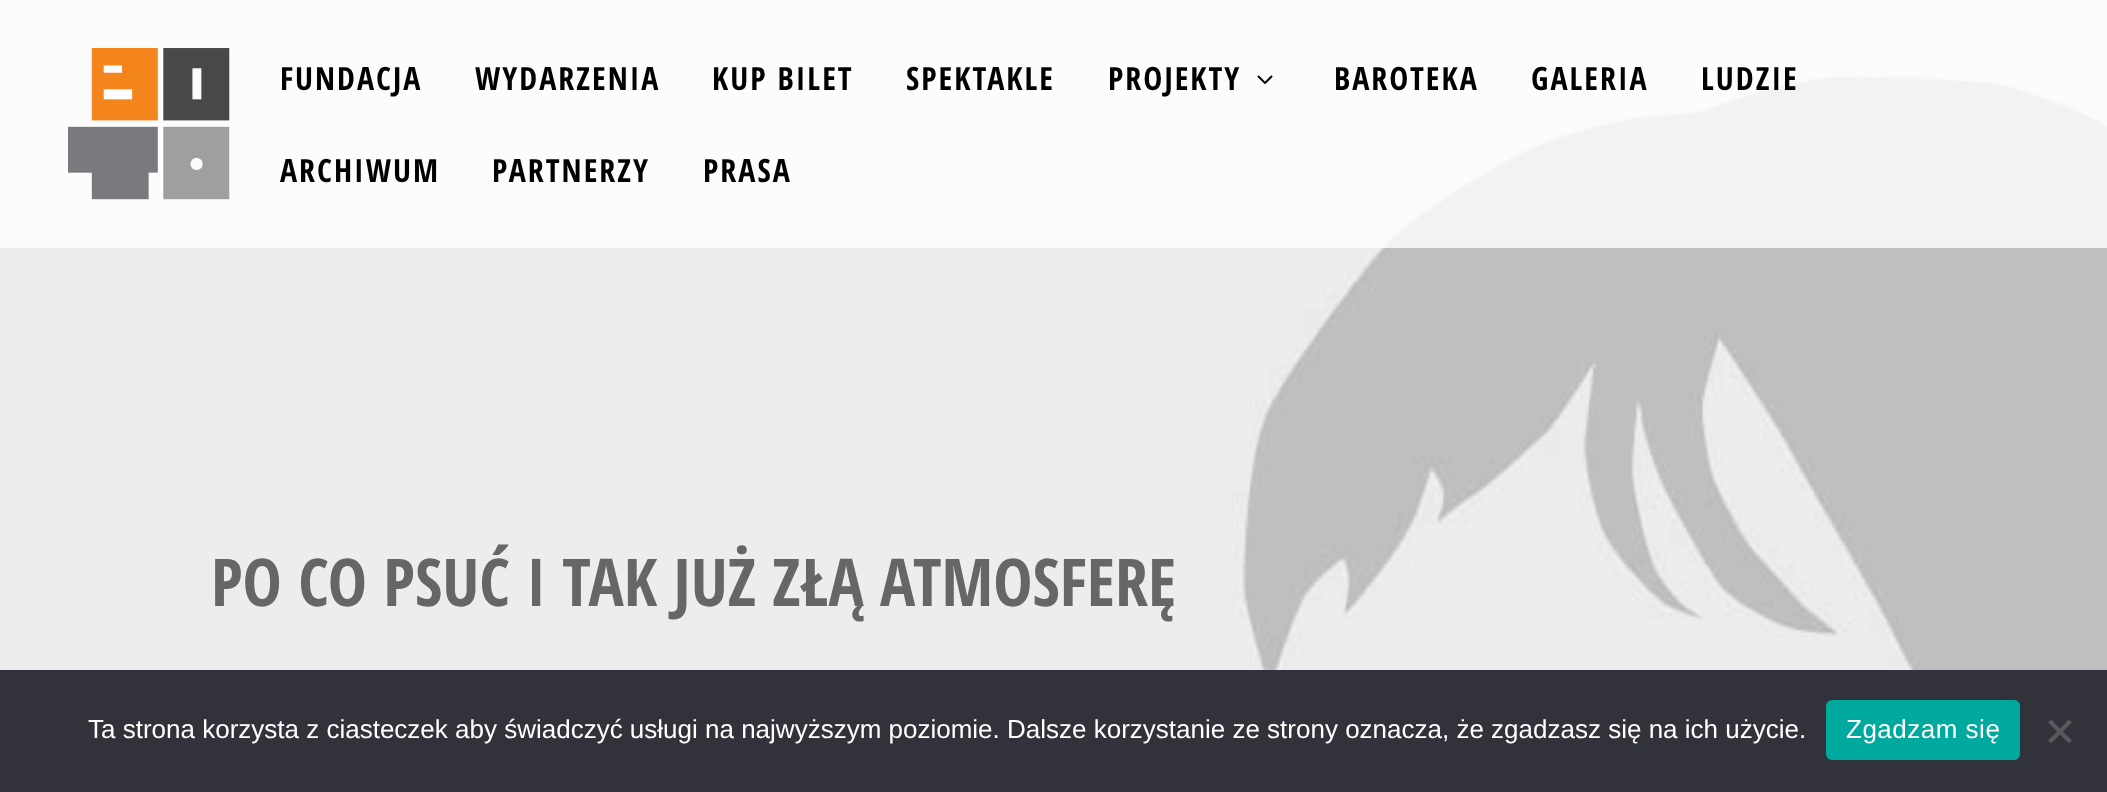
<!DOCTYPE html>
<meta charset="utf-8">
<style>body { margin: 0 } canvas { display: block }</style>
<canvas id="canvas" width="2107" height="792"></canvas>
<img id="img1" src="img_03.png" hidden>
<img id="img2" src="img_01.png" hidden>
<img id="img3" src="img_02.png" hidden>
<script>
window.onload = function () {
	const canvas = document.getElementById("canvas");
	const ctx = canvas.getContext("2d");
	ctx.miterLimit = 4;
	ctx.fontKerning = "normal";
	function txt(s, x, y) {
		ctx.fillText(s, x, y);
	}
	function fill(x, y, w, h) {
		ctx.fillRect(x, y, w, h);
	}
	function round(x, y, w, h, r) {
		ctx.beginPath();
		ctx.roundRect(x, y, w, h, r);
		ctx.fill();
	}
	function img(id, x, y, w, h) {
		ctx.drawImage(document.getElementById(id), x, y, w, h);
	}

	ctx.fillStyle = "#FFFFFF";
	fill(0, 0, 2107, 792);
	img("img1", 0, 0, 2107, 670);
	ctx.fillStyle = "rgba(255, 255, 255, 0.8)";
	fill(0, 0, 2107, 248);
	img("img2", 68, 48, 162, 152);
	img("img3", 1257, 75, 16, 9);
	ctx.fillStyle = "#32323A";
	fill(0, 670, 2107, 122);
	ctx.fillStyle = "#00A99D";
	round(1826, 700, 194, 60, 6);
	ctx.fillStyle = "#59595D";
	ctx.beginPath();
	ctx.moveTo(2069, 719.5);
	ctx.lineTo(2072, 722.5);
	ctx.lineTo(2051, 743.5);
	ctx.lineTo(2048, 740.5);
	ctx.closePath();
	ctx.fill();
	ctx.beginPath();
	ctx.moveTo(2048, 722.5);
	ctx.lineTo(2051, 719.5);
	ctx.lineTo(2072, 740.5);
	ctx.lineTo(2069, 743.5);
	ctx.closePath();
	ctx.fill();
	ctx.letterSpacing = "2px";
	ctx.font = "bold 32px Open Sans Condensed";
	ctx.fillStyle = "#000000";
	txt("FUNDACJA", 280, 90);
	txt("WYDARZENIA", 475, 90);
	txt("KUP BILET", 712, 90);
	txt("SPEKTAKLE", 906, 90);
	txt("PROJEKTY", 1108, 90);
	txt("BAROTEKA", 1334, 90);
	txt("GALERIA", 1531, 90);
	txt("LUDZIE", 1701, 90);
	txt("ARCHIWUM", 280, 182);
	txt("PARTNERZY", 492, 182);
	txt("PRASA", 703, 182);
	ctx.letterSpacing = "0px";
	ctx.font = "bold 66px Open Sans Condensed";
	ctx.fillStyle = "#666666";
	txt("PO CO PSUĆ I TAK JUŻ ZŁĄ ATMOSFERĘ", 211, 606);
	ctx.font = "26px Liberation Sans";
	ctx.fillStyle = "#FFFFFF";
	txt("Ta strona korzysta z ciasteczek aby świadczyć usługi na najwyższym poziomie. Dalsze korzystanie ze strony oznacza, że zgadzasz się na ich użycie.", 88, 738);
	ctx.letterSpacing = "0.5px";
	txt("Zgadzam się", 1846, 738);
};
</script>
